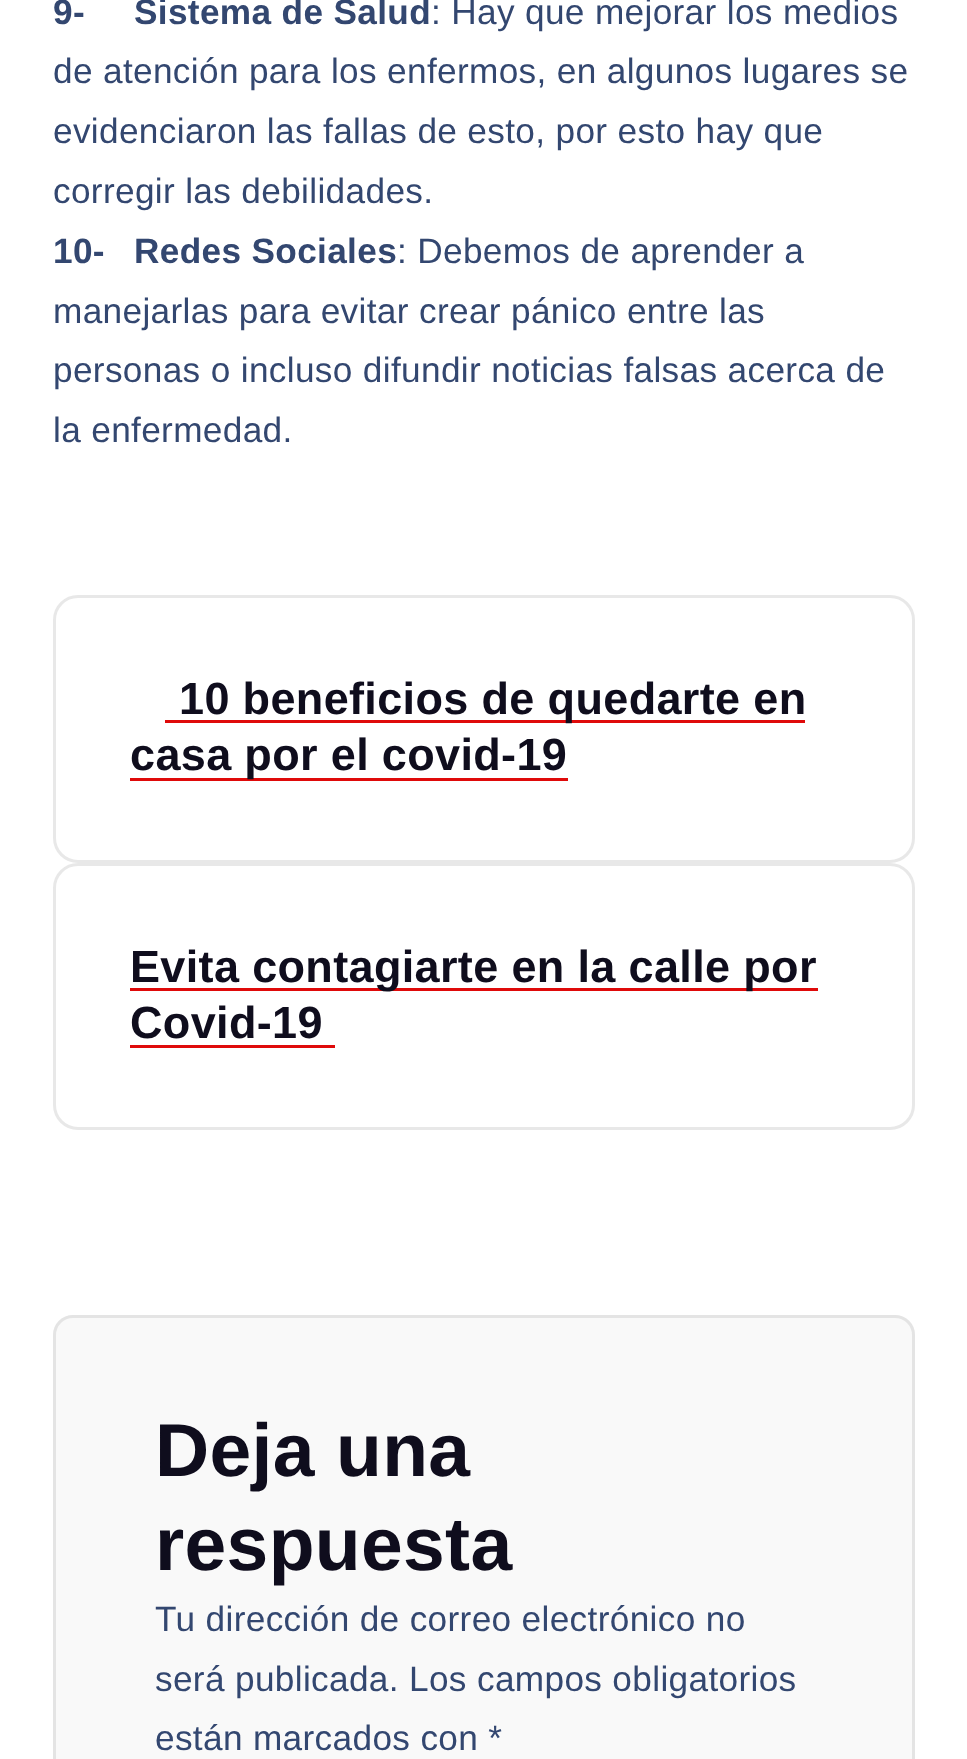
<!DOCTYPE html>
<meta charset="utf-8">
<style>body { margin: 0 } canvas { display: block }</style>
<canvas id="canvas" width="967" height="1759"></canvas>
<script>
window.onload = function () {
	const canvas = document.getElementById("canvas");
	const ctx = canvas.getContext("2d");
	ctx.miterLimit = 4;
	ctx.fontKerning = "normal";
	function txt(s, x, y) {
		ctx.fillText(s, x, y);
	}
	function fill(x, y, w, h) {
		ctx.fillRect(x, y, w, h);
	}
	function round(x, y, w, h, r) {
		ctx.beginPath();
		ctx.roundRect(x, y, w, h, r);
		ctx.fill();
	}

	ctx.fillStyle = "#FFFFFF";
	fill(0, 0, 967, 1759);
	ctx.beginPath();
	ctx.roundRect(54.5, 596.5, 859, 265, 23.5);
	ctx.strokeStyle = "#E8E8E8";
	ctx.lineWidth = 3;
	ctx.stroke();
	ctx.fillStyle = "#DF0A0A";
	fill(165, 720, 640, 3);
	fill(130, 778, 438, 3);
	ctx.beginPath();
	ctx.roundRect(54.5, 864.5, 859, 264, 23.5);
	ctx.stroke();
	fill(130, 988, 688, 3);
	fill(130, 1045, 205, 3);
	ctx.fillStyle = "#F9F9F9";
	round(53, 1315, 862, 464, 20);
	ctx.beginPath();
	ctx.roundRect(54.5, 1316.5, 859, 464, 18.5);
	ctx.strokeStyle = "rgba(189, 189, 189, 0.35)";
	ctx.stroke();
	ctx.letterSpacing = "0.35px";
	ctx.font = "bold 35.2px Liberation Sans";
	ctx.fillStyle = "#334770";
	txt("9-", 53, 24);
	txt("Sistema de Salud", 134, 24);
	ctx.font = "35.2px Liberation Sans";
	txt(": Hay que mejorar los medios", 431, 24);
	txt("de atención para los enfermos, en algunos lugares se", 53, 83);
	txt("evidenciaron las fallas de esto, por esto hay que", 53, 143);
	txt("corregir las debilidades.", 53, 203);
	ctx.font = "bold 35.2px Liberation Sans";
	txt("10-", 53, 263);
	txt("Redes Sociales", 134, 263);
	ctx.font = "35.2px Liberation Sans";
	txt(": Debemos de aprender a", 397, 263);
	txt("manejarlas para evitar crear pánico entre las", 53, 323);
	txt("personas o incluso difundir noticias falsas acerca de", 53, 382);
	txt("la enfermedad.", 53, 442);
	ctx.font = "bold 45px Liberation Sans";
	ctx.fillStyle = "#0F0D1D";
	txt("10 beneficios de quedarte en", 179, 714);
	txt("casa por el covid-19", 130, 770);
	txt("Evita contagiarte en la calle por", 130, 982);
	txt("Covid-19", 130, 1038);
	ctx.font = "bold 75px Liberation Sans";
	txt("Deja una", 155, 1476);
	txt("respuesta", 155, 1570);
	ctx.font = "35.2px Liberation Sans";
	ctx.fillStyle = "#334770";
	txt("Tu dirección de correo electrónico no", 155, 1631);
	txt("será publicada. Los campos obligatorios", 155, 1691);
	txt("están marcados con *", 155, 1750);
};
</script>
